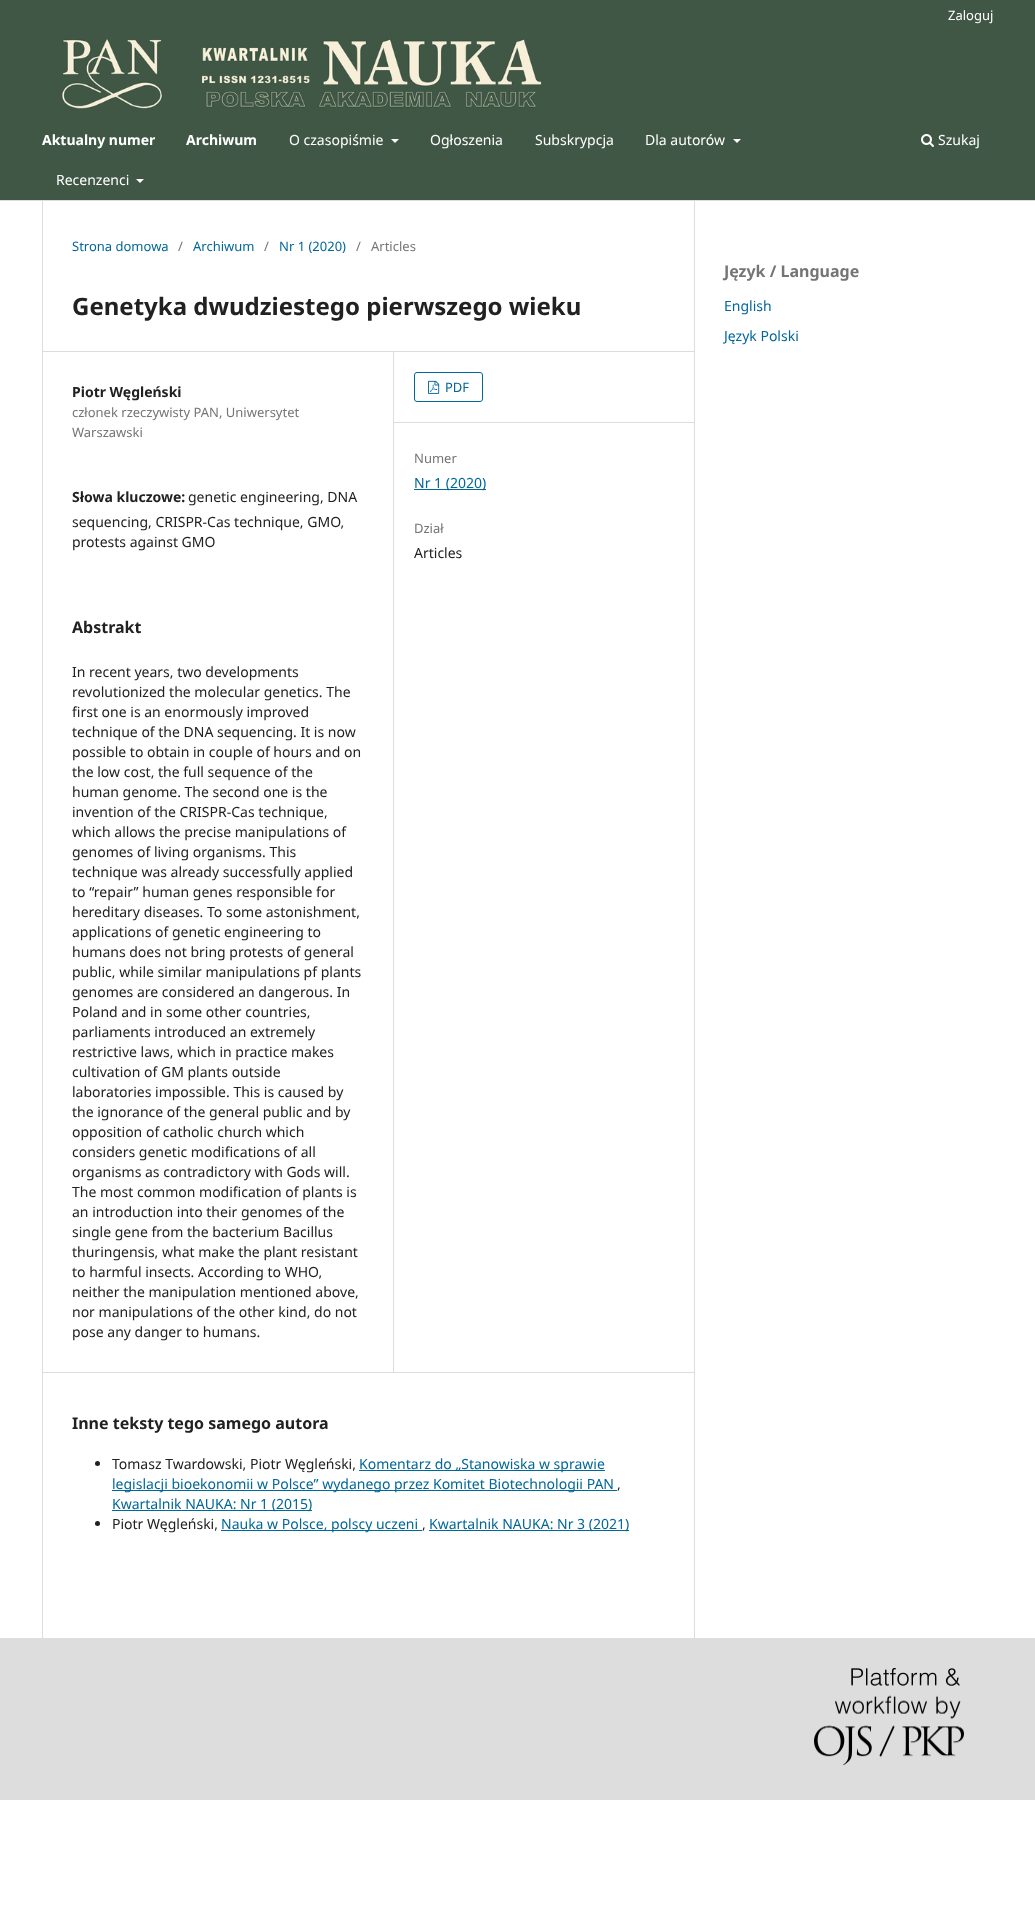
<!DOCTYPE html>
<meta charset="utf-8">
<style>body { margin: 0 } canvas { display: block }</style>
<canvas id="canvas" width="1035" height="1928"></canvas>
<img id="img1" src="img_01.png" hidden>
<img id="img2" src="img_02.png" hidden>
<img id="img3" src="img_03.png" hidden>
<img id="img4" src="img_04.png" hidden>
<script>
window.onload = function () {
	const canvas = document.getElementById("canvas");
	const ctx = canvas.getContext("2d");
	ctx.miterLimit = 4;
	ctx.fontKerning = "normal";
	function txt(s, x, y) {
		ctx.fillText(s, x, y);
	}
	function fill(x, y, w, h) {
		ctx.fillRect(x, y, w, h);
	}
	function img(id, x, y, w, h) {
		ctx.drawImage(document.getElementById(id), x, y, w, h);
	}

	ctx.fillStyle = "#FFFFFF";
	fill(0, 0, 1035, 1928);
	ctx.fillStyle = "#405745";
	fill(0, 0, 1035, 200);
	ctx.fillStyle = "#DDDDDD";
	fill(0, 200, 1035, 1);
	ctx.fillStyle = "#FFFFFF";
	ctx.beginPath();
	ctx.moveTo(391, 139);
	ctx.lineTo(399, 139);
	ctx.lineTo(395, 143);
	ctx.closePath();
	ctx.fill();
	ctx.beginPath();
	ctx.moveTo(733, 139);
	ctx.lineTo(741, 139);
	ctx.lineTo(737, 143);
	ctx.closePath();
	ctx.fill();
	ctx.beginPath();
	ctx.moveTo(136, 179);
	ctx.lineTo(144, 179);
	ctx.lineTo(140, 183);
	ctx.closePath();
	ctx.fill();
	img("img1", 921, 134, 13, 13);
	img("img2", 62, 39, 480, 70);
	ctx.fillStyle = "#DDDDDD";
	fill(42, 351, 652, 1);
	fill(42, 1372, 652, 1);
	fill(42, 201, 1, 1437);
	fill(393, 352, 1, 1020);
	fill(394, 422, 300, 1);
	ctx.beginPath();
	ctx.roundRect(414.5, 372.5, 68, 29, 2.5);
	ctx.strokeStyle = "#006798";
	ctx.stroke();
	img("img3", 428, 380, 12, 14);
	ctx.fillStyle = "#006798";
	fill(414, 489, 72, 1);
	ctx.fillStyle = "#212121";
	ctx.beginPath();
	ctx.arc(97.5, 1463.5, 2.5, 0, Math.PI * 2);
	ctx.fill();
	ctx.fillStyle = "#006798";
	fill(359, 1470, 246, 1);
	fill(112, 1490, 505, 1);
	fill(112, 1510, 200, 1);
	ctx.fillStyle = "#212121";
	ctx.beginPath();
	ctx.arc(97.5, 1523.5, 2.5, 0, Math.PI * 2);
	ctx.fill();
	ctx.fillStyle = "#006798";
	fill(221, 1530, 201, 1);
	fill(429, 1530, 200, 1);
	ctx.fillStyle = "#DDDDDD";
	fill(694, 201, 1, 1437);
	fill(0, 1638, 1035, 162);
	img("img4", 814, 1668, 150, 97);
	ctx.font = "13px Noto Sans";
	ctx.fillStyle = "#FFFFFF";
	txt("Zaloguj", 948, 20);
	ctx.font = "bold 14px Noto Sans";
	txt("Aktualny numer", 42, 145);
	txt("Archiwum", 186, 145);
	ctx.font = "14px Noto Sans";
	txt("O czasopiśmie", 289, 145);
	txt("Ogłoszenia", 430, 145);
	txt("Subskrypcja", 535, 145);
	txt("Dla autorów", 645, 145);
	txt("Recenzenci", 56, 185);
	txt("Szukaj", 938, 145);
	ctx.font = "13px Noto Sans";
	ctx.fillStyle = "#006798";
	txt("Strona domowa", 72, 251);
	ctx.fillStyle = "#757575";
	txt("/", 178, 251);
	ctx.fillStyle = "#006798";
	txt("Archiwum", 193, 251);
	ctx.fillStyle = "#757575";
	txt("/", 264, 251);
	ctx.fillStyle = "#006798";
	txt("Nr 1 (2020)", 279, 251);
	ctx.fillStyle = "#757575";
	txt("/", 356, 251);
	txt("Articles", 371, 251);
	ctx.font = "bold 24px Noto Sans";
	ctx.fillStyle = "#212121";
	txt("Genetyka dwudziestego pierwszego wieku", 72, 315);
	ctx.font = "bold 14px Noto Sans";
	txt("Piotr Węgleński", 72, 397);
	ctx.font = "13px Noto Sans";
	ctx.fillStyle = "#757575";
	txt("członek rzeczywisty PAN, Uniwersytet", 72, 417);
	txt("Warszawski", 72, 437);
	ctx.font = "bold 14px Noto Sans";
	ctx.fillStyle = "#212121";
	txt("Słowa kluczowe:", 72, 502);
	ctx.font = "14px Noto Sans";
	txt("genetic engineering, DNA", 188, 502);
	txt("sequencing, CRISPR-Cas technique, GMO,", 72, 527);
	txt("protests against GMO", 72, 547);
	ctx.font = "bold 16px Noto Sans";
	txt("Abstrakt", 72, 633);
	ctx.font = "14px Noto Sans";
	txt("In recent years, two developments", 72, 677);
	txt("revolutionized the molecular genetics. The", 72, 697);
	txt("first one is an enormously improved", 72, 717);
	txt("technique of the DNA sequencing. It is now", 72, 737);
	txt("possible to obtain in couple of hours and on", 72, 757);
	txt("the low cost, the full sequence of the", 72, 777);
	txt("human genome. The second one is the", 72, 797);
	txt("invention of the CRISPR-Cas technique,", 72, 817);
	txt("which allows the precise manipulations of", 72, 837);
	txt("genomes of living organisms. This", 72, 857);
	txt("technique was already successfully applied", 72, 877);
	txt("to “repair” human genes responsible for", 72, 897);
	txt("hereditary diseases. To some astonishment,", 72, 917);
	txt("applications of genetic engineering to", 72, 937);
	txt("humans does not bring protests of general", 72, 957);
	txt("public, while similar manipulations pf plants", 72, 977);
	txt("genomes are considered an dangerous. In", 72, 997);
	txt("Poland and in some other countries,", 72, 1017);
	txt("parliaments introduced an extremely", 72, 1037);
	txt("restrictive laws, which in practice makes", 72, 1057);
	txt("cultivation of GM plants outside", 72, 1077);
	txt("laboratories impossible. This is caused by", 72, 1097);
	txt("the ignorance of the general public and by", 72, 1117);
	txt("opposition of catholic church which", 72, 1137);
	txt("considers genetic modifications of all", 72, 1157);
	txt("organisms as contradictory with Gods will.", 72, 1177);
	txt("The most common modification of plants is", 72, 1197);
	txt("an introduction into their genomes of the", 72, 1217);
	txt("single gene from the bacterium Bacillus", 72, 1237);
	txt("thuringensis, what make the plant resistant", 72, 1257);
	txt("to harmful insects. According to WHO,", 72, 1277);
	txt("neither the manipulation mentioned above,", 72, 1297);
	txt("nor manipulations of the other kind, do not", 72, 1317);
	txt("pose any danger to humans.", 72, 1337);
	ctx.font = "13px Noto Sans";
	ctx.fillStyle = "#006798";
	txt("PDF", 445, 392);
	ctx.fillStyle = "#757575";
	txt("Numer", 414, 463);
	ctx.font = "14px Noto Sans";
	ctx.fillStyle = "#006798";
	txt("Nr 1 (2020)", 414, 488);
	ctx.font = "13px Noto Sans";
	ctx.fillStyle = "#757575";
	txt("Dział", 414, 533);
	ctx.font = "14px Noto Sans";
	ctx.fillStyle = "#212121";
	txt("Articles", 414, 558);
	ctx.font = "bold 16px Noto Sans";
	txt("Inne teksty tego samego autora", 72, 1429);
	ctx.font = "14px Noto Sans";
	txt("Tomasz Twardowski, Piotr Węgleński,", 112, 1469);
	ctx.fillStyle = "#006798";
	txt("Komentarz do „Stanowiska w sprawie", 359, 1469);
	txt("legislacji bioekonomii w Polsce” wydanego przez Komitet Biotechnologii PAN", 112, 1489);
	ctx.fillStyle = "#212121";
	txt(",", 617, 1489);
	ctx.fillStyle = "#006798";
	txt("Kwartalnik NAUKA: Nr 1 (2015)", 112, 1509);
	ctx.fillStyle = "#212121";
	txt("Piotr Węgleński,", 112, 1529);
	ctx.fillStyle = "#006798";
	txt("Nauka w Polsce, polscy uczeni", 221, 1529);
	txt("Kwartalnik NAUKA: Nr 3 (2021)", 429, 1529);
	ctx.fillStyle = "#212121";
	txt(",", 422, 1529);
	ctx.font = "bold 16px Noto Sans";
	ctx.fillStyle = "#757575";
	txt("Język / Language", 724, 277);
	ctx.font = "14px Noto Sans";
	ctx.fillStyle = "#006798";
	txt("English", 724, 311);
	txt("Język Polski", 724, 341);
};
</script>
